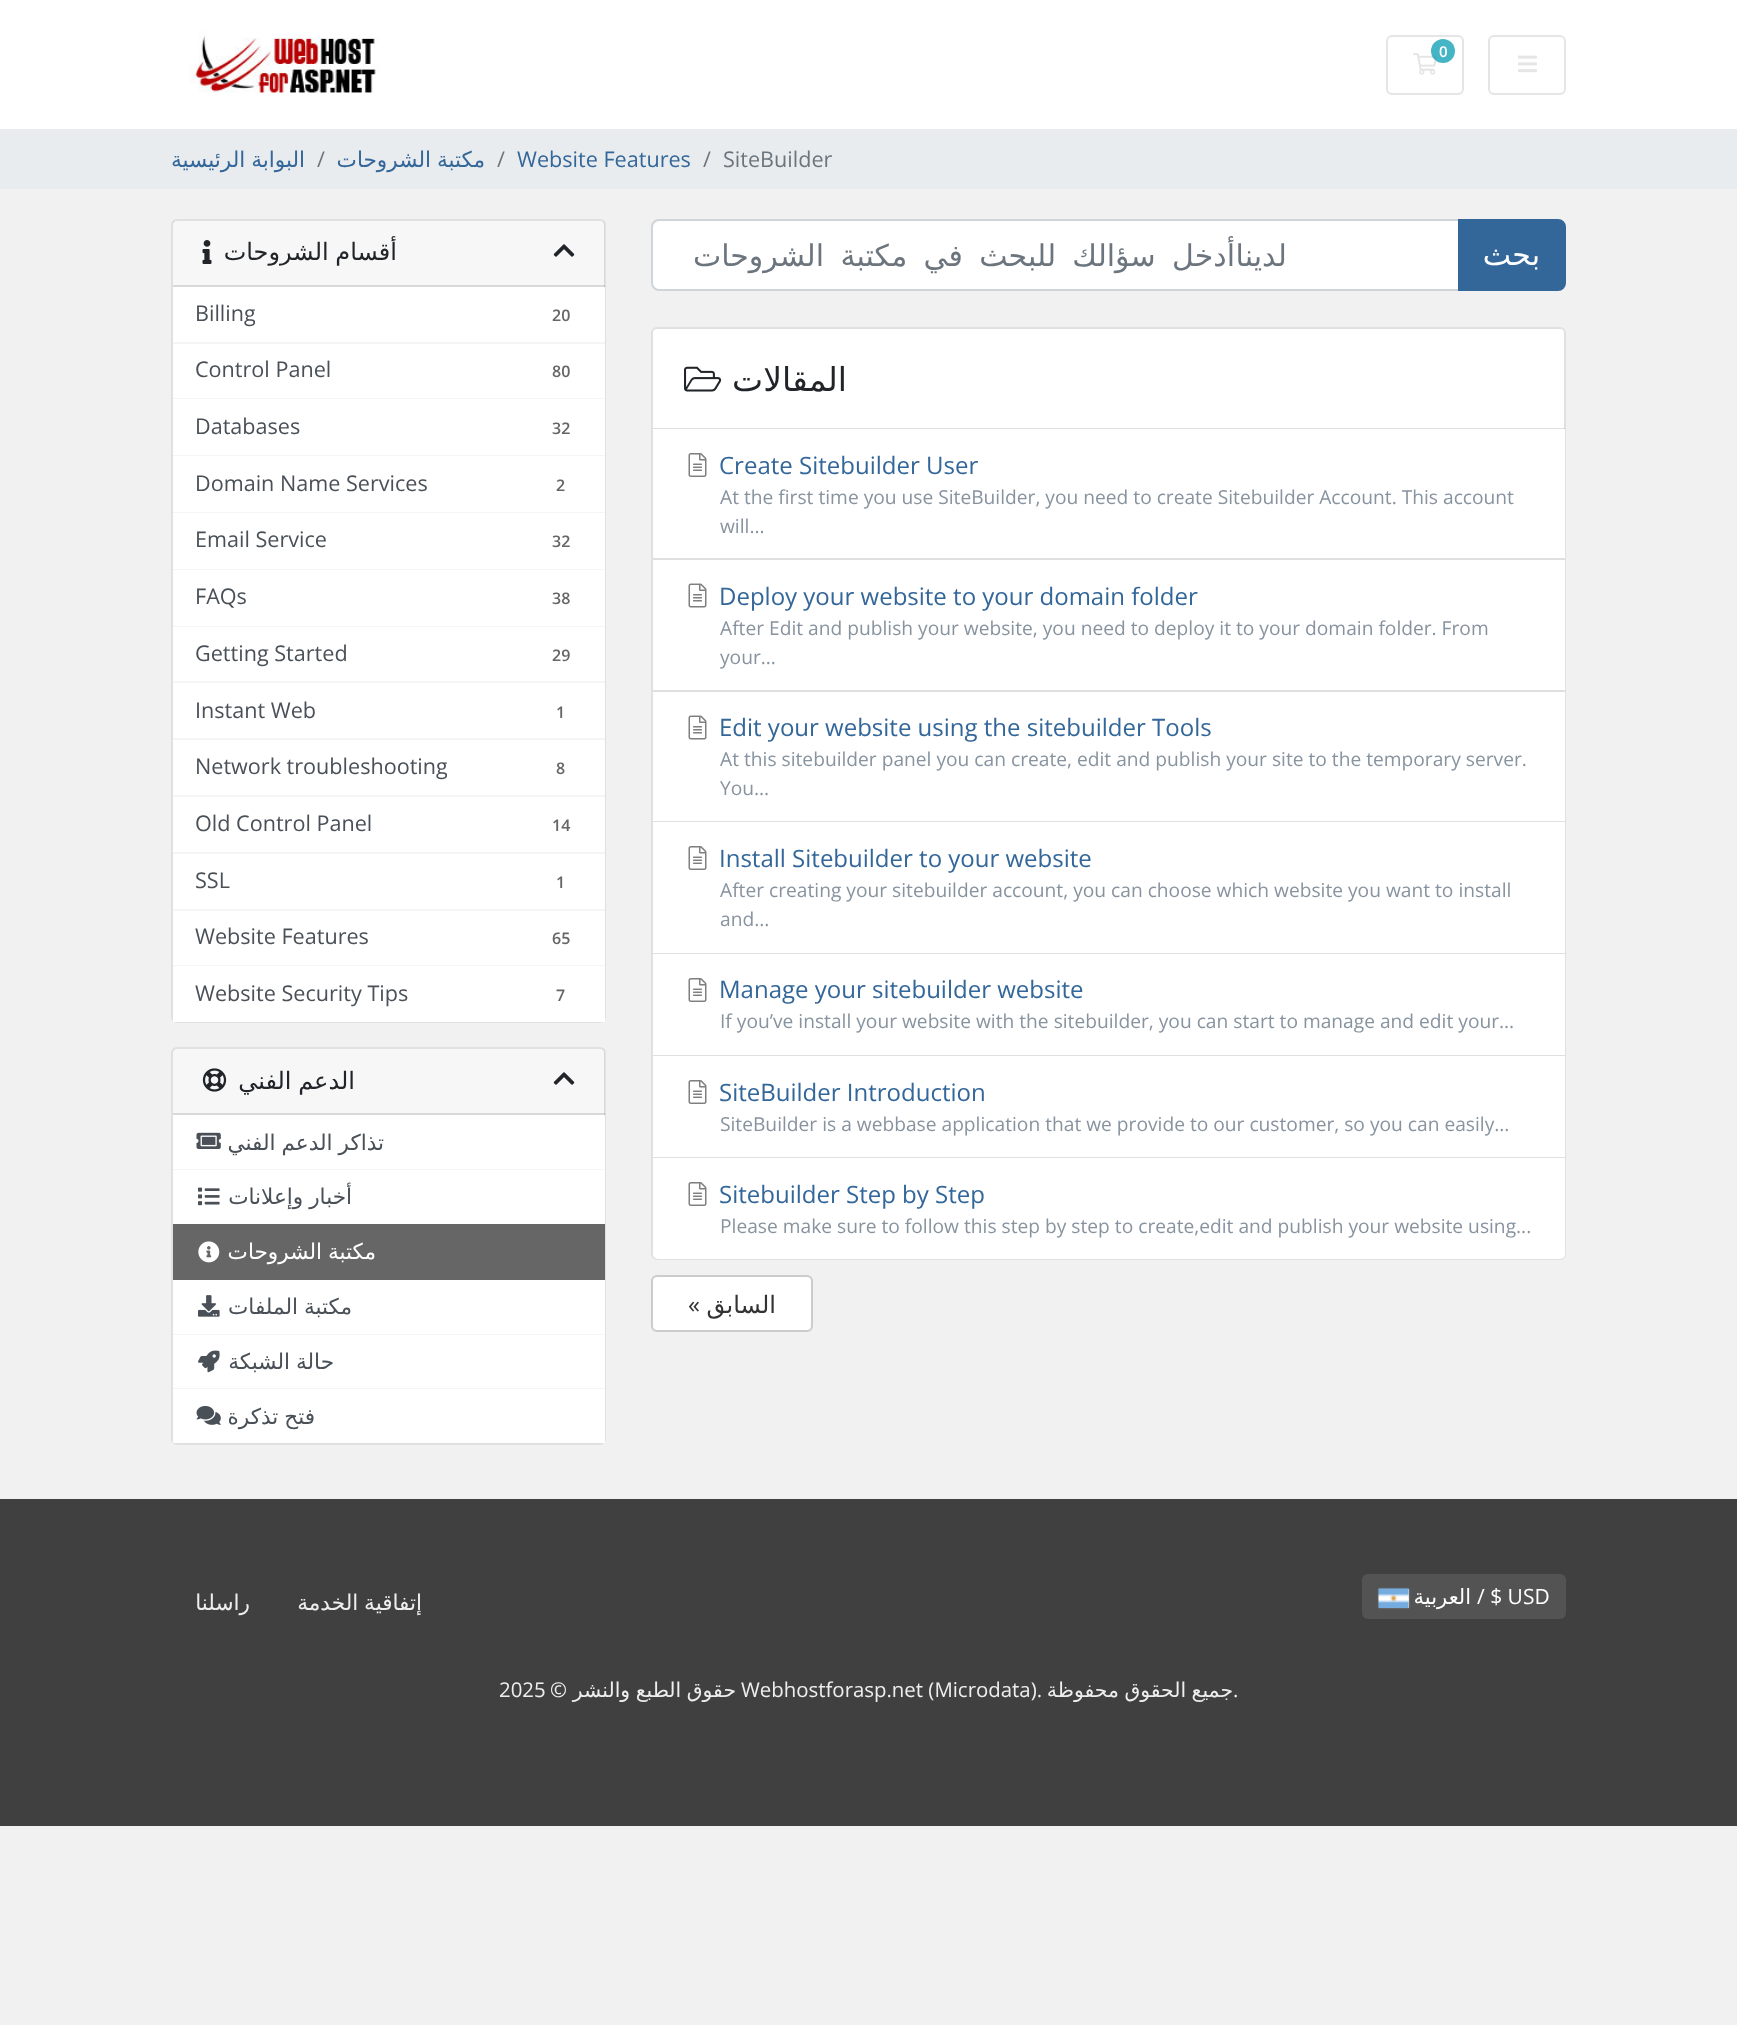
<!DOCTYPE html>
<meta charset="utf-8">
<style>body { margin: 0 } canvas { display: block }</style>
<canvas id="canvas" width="1737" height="2025"></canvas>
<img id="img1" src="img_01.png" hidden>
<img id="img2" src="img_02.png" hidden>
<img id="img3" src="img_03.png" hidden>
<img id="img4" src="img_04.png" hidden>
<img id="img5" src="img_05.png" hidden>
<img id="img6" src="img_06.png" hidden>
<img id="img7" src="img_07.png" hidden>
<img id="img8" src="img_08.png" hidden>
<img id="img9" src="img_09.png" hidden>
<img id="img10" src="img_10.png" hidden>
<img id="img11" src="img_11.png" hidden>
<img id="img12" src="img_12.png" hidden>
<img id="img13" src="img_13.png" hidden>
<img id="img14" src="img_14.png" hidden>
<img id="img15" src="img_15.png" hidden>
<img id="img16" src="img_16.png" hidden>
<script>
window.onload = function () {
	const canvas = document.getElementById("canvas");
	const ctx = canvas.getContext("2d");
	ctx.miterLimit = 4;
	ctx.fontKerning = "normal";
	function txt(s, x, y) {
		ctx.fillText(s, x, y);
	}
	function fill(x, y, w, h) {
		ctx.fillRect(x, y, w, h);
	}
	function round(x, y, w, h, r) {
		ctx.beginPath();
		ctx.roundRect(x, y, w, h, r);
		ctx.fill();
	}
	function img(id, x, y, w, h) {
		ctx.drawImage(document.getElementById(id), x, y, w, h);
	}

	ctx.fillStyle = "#F1F1F1";
	fill(0, 0, 1737, 2025);
	ctx.fillStyle = "#FFFFFF";
	fill(0, 0, 1737, 129);
	img("img1", 189, 29, 190, 64);
	ctx.beginPath();
	ctx.roundRect(1387, 36, 76, 58, 5);
	ctx.strokeStyle = "#E5E5E5";
	ctx.lineWidth = 2;
	ctx.stroke();
	img("img2", 1413, 53, 25, 22);
	ctx.fillStyle = "rgba(23, 162, 184, 0.8)";
	ctx.beginPath();
	ctx.arc(1443, 51, 12, 0, Math.PI * 2);
	ctx.fill();
	ctx.beginPath();
	ctx.roundRect(1489, 36, 76, 58, 5);
	ctx.stroke();
	img("img3", 1518, 55, 19, 18);
	ctx.fillStyle = "#E9ECEF";
	fill(0, 129, 1737, 60);
	ctx.fillStyle = "#FFFFFF";
	round(171, 219, 435, 804, 6);
	ctx.beginPath();
	ctx.roundRect(172, 220, 433, 802, 5);
	ctx.strokeStyle = "rgba(0, 0, 0, 0.12)";
	ctx.stroke();
	ctx.fillStyle = "rgba(0, 0, 0, 0.03)";
	fill(173, 221, 432, 66);
	ctx.fillStyle = "rgba(0, 0, 0, 0.12)";
	fill(173, 285, 432, 2);
	img("img4", 202, 240, 10, 24);
	img("img5", 553, 244, 22, 13);
	ctx.fillStyle = "#FFFFFF";
	fill(604, 287, 1, 55);
	ctx.fillStyle = "#F5F5F5";
	fill(173, 342, 432, 2);
	ctx.fillStyle = "#FFFFFF";
	fill(604, 344, 1, 54);
	ctx.fillStyle = "#F5F5F5";
	fill(173, 398, 432, 1);
	ctx.fillStyle = "#FFFFFF";
	fill(604, 399, 1, 56);
	ctx.fillStyle = "#F5F5F5";
	fill(173, 455, 432, 1);
	ctx.fillStyle = "#FFFFFF";
	fill(604, 456, 1, 56);
	ctx.fillStyle = "#F5F5F5";
	fill(173, 512, 432, 1);
	ctx.fillStyle = "#FFFFFF";
	fill(604, 513, 1, 56);
	ctx.fillStyle = "#F5F5F5";
	fill(173, 569, 432, 1);
	ctx.fillStyle = "#FFFFFF";
	fill(604, 570, 1, 56);
	ctx.fillStyle = "#F5F5F5";
	fill(173, 626, 432, 1);
	ctx.fillStyle = "#FFFFFF";
	fill(604, 627, 1, 54);
	ctx.fillStyle = "#F5F5F5";
	fill(173, 681, 432, 2);
	ctx.fillStyle = "#FFFFFF";
	fill(604, 683, 1, 55);
	ctx.fillStyle = "#F5F5F5";
	fill(173, 738, 432, 2);
	ctx.fillStyle = "#FFFFFF";
	fill(604, 740, 1, 55);
	ctx.fillStyle = "#F5F5F5";
	fill(173, 795, 432, 2);
	ctx.fillStyle = "#FFFFFF";
	fill(604, 797, 1, 55);
	ctx.fillStyle = "#F5F5F5";
	fill(173, 852, 432, 2);
	ctx.fillStyle = "#FFFFFF";
	fill(604, 854, 1, 55);
	ctx.fillStyle = "#F5F5F5";
	fill(173, 909, 432, 2);
	ctx.fillStyle = "#FFFFFF";
	fill(604, 911, 1, 54);
	ctx.fillStyle = "#F5F5F5";
	fill(173, 965, 432, 1);
	ctx.fillStyle = "#FFFFFF";
	fill(173, 966, 432, 56);
	round(171, 1047, 435, 398, 6);
	ctx.beginPath();
	ctx.roundRect(172, 1048, 433, 396, 5);
	ctx.stroke();
	ctx.fillStyle = "rgba(0, 0, 0, 0.03)";
	fill(173, 1049, 432, 66);
	ctx.fillStyle = "rgba(0, 0, 0, 0.12)";
	fill(173, 1113, 432, 2);
	img("img6", 202, 1068, 25, 24);
	img("img5", 553, 1072, 22, 13);
	ctx.fillStyle = "#FFFFFF";
	fill(604, 1115, 1, 54);
	ctx.fillStyle = "#F5F5F5";
	fill(173, 1169, 432, 1);
	img("img7", 196, 1132, 25, 17);
	ctx.fillStyle = "#FFFFFF";
	fill(604, 1170, 1, 54);
	img("img8", 198, 1187, 22, 19);
	ctx.fillStyle = "#666666";
	fill(173, 1224, 432, 56);
	img("img9", 198, 1241, 22, 22);
	ctx.fillStyle = "#FFFFFF";
	fill(604, 1280, 1, 54);
	ctx.fillStyle = "#F5F5F5";
	fill(173, 1334, 432, 1);
	img("img10", 198, 1295, 22, 22);
	ctx.fillStyle = "#FFFFFF";
	fill(604, 1335, 1, 53);
	ctx.fillStyle = "#F5F5F5";
	fill(173, 1388, 432, 1);
	img("img11", 198, 1350, 22, 23);
	ctx.fillStyle = "#FFFFFF";
	fill(173, 1389, 432, 54);
	img("img12", 196, 1405, 25, 20);
	ctx.beginPath();
	ctx.roundRect(652, 220, 807, 70, [7, 0, 0, 7]);
	ctx.fill();
	ctx.strokeStyle = "#CED4DA";
	ctx.stroke();
	ctx.fillStyle = "#336699";
	ctx.beginPath();
	ctx.roundRect(1459, 220, 106, 70, [0, 7, 7, 0]);
	ctx.fill();
	ctx.strokeStyle = "#336699";
	ctx.stroke();
	ctx.fillStyle = "#FFFFFF";
	round(651, 327, 915, 933, 6);
	ctx.beginPath();
	ctx.roundRect(652, 328, 913, 931, 5);
	ctx.strokeStyle = "rgba(0, 0, 0, 0.12)";
	ctx.stroke();
	img("img13", 684, 366, 38, 26);
	ctx.fillStyle = "rgba(0, 0, 0, 0.12)";
	fill(653, 428, 912, 1);
	ctx.fillStyle = "#FFFFFF";
	fill(1564, 429, 1, 129);
	ctx.fillStyle = "#DFDFDF";
	fill(653, 558, 912, 2);
	img("img14", 688, 453, 19, 24);
	ctx.fillStyle = "#FFFFFF";
	fill(1564, 560, 1, 130);
	ctx.fillStyle = "#DFDFDF";
	fill(653, 690, 912, 2);
	img("img15", 688, 583, 19, 25);
	ctx.fillStyle = "#FFFFFF";
	fill(1564, 692, 1, 466);
	ctx.fillStyle = "rgba(0, 0, 0, 0.12)";
	fill(653, 821, 912, 1);
	img("img15", 688, 715, 19, 25);
	fill(653, 953, 912, 1);
	img("img14", 688, 846, 19, 24);
	fill(653, 1055, 912, 1);
	img("img14", 688, 978, 19, 24);
	fill(653, 1157, 912, 1);
	img("img14", 688, 1080, 19, 24);
	ctx.fillStyle = "#FFFFFF";
	ctx.beginPath();
	ctx.roundRect(653, 1158, 912, 101, [0, 0, 5, 5]);
	ctx.fill();
	img("img14", 688, 1182, 19, 24);
	ctx.beginPath();
	ctx.roundRect(652, 1276, 160, 55, 5);
	ctx.fill();
	ctx.strokeStyle = "#CCCCCC";
	ctx.stroke();
	ctx.fillStyle = "#404040";
	fill(0, 1499, 1737, 327);
	ctx.fillStyle = "#535353";
	round(1362, 1574, 204, 45, 6);
	ctx.fillStyle = "#888888";
	ctx.filter = "blur(1px)";
	ctx.beginPath();
	ctx.rect(1379, 1589, 30, 19);
	ctx.fill();
	ctx.filter = "none";
	ctx.fillStyle = "#DBDBDB";
	fill(1408, 1589, 1, 19);
	img("img16", 1378, 1588, 31, 20);
	ctx.font = "600 15px Open Sans";
	ctx.fillStyle = "#FFFFFF";
	txt("0", 1439, 57);
	ctx.wordSpacing = "-1px";
	ctx.direction = "rtl";
	ctx.font = "21.6px DejaVu Sans";
	ctx.fillStyle = "#336699";
	txt("البوابة الرئيسية", 305, 167);
	ctx.wordSpacing = "0px";
	ctx.direction = "ltr";
	ctx.font = "21.6px Open Sans";
	ctx.fillStyle = "#6C757D";
	txt("/", 317, 167);
	ctx.wordSpacing = "-1px";
	ctx.direction = "rtl";
	ctx.font = "21.6px DejaVu Sans";
	ctx.fillStyle = "#336699";
	txt("مكتبة الشروحات", 485, 167);
	ctx.wordSpacing = "0px";
	ctx.direction = "ltr";
	ctx.font = "21.6px Open Sans";
	ctx.fillStyle = "#6C757D";
	txt("/", 497, 167);
	ctx.fillStyle = "#336699";
	txt("Website Features", 517, 167);
	ctx.fillStyle = "#6C757D";
	txt("/", 703, 167);
	txt("SiteBuilder", 723, 167);
	ctx.wordSpacing = "-1px";
	ctx.direction = "rtl";
	ctx.font = "24px DejaVu Sans";
	ctx.fillStyle = "#212529";
	txt("أقسام الشروحات", 397, 260);
	ctx.save();
	ctx.beginPath();
	ctx.rect(195, 297, 60, 32);
	ctx.clip();
	ctx.wordSpacing = "0px";
	ctx.direction = "ltr";
	ctx.font = "21.6px Open Sans";
	ctx.fillStyle = "#495057";
	txt("Billing", 195, 321);
	ctx.restore();
	ctx.wordSpacing = "0px";
	ctx.direction = "ltr";
	ctx.font = "600 16px Open Sans";
	ctx.fillStyle = "#666666";
	txt("20", 552, 321);
	ctx.font = "21.6px Open Sans";
	ctx.fillStyle = "#495057";
	txt("Control Panel", 195, 377);
	ctx.font = "600 16px Open Sans";
	ctx.fillStyle = "#666666";
	txt("80", 552, 377);
	ctx.font = "21.6px Open Sans";
	ctx.fillStyle = "#495057";
	txt("Databases", 195, 434);
	ctx.font = "600 16px Open Sans";
	ctx.fillStyle = "#666666";
	txt("32", 552, 434);
	ctx.font = "21.6px Open Sans";
	ctx.fillStyle = "#495057";
	txt("Domain Name Services", 195, 491);
	ctx.font = "600 16px Open Sans";
	ctx.fillStyle = "#666666";
	txt("2", 556, 491);
	ctx.font = "21.6px Open Sans";
	ctx.fillStyle = "#495057";
	txt("Email Service", 195, 547);
	ctx.font = "600 16px Open Sans";
	ctx.fillStyle = "#666666";
	txt("32", 552, 547);
	ctx.font = "21.6px Open Sans";
	ctx.fillStyle = "#495057";
	txt("FAQs", 195, 604);
	ctx.font = "600 16px Open Sans";
	ctx.fillStyle = "#666666";
	txt("38", 552, 604);
	ctx.font = "21.6px Open Sans";
	ctx.fillStyle = "#495057";
	txt("Getting Started", 195, 661);
	ctx.font = "600 16px Open Sans";
	ctx.fillStyle = "#666666";
	txt("29", 552, 661);
	ctx.font = "21.6px Open Sans";
	ctx.fillStyle = "#495057";
	txt("Instant Web", 195, 718);
	ctx.font = "600 16px Open Sans";
	ctx.fillStyle = "#666666";
	txt("1", 556, 718);
	ctx.save();
	ctx.beginPath();
	ctx.rect(195, 750, 252, 33);
	ctx.clip();
	ctx.font = "21.6px Open Sans";
	ctx.fillStyle = "#495057";
	txt("Network troubleshooting", 195, 774);
	ctx.restore();
	txt("8", 556, 774);
	ctx.font = "21.6px Open Sans";
	ctx.fillStyle = "#495057";
	txt("Old Control Panel", 195, 831);
	ctx.font = "600 16px Open Sans";
	ctx.fillStyle = "#666666";
	txt("14", 552, 831);
	ctx.font = "21.6px Open Sans";
	ctx.fillStyle = "#495057";
	txt("SSL", 195, 888);
	ctx.font = "600 16px Open Sans";
	ctx.fillStyle = "#666666";
	txt("1", 556, 888);
	ctx.font = "21.6px Open Sans";
	ctx.fillStyle = "#495057";
	txt("Website Features", 195, 944);
	ctx.font = "600 16px Open Sans";
	ctx.fillStyle = "#666666";
	txt("65", 552, 944);
	ctx.font = "21.6px Open Sans";
	ctx.fillStyle = "#495057";
	txt("Website Security Tips", 195, 1001);
	ctx.font = "600 16px Open Sans";
	ctx.fillStyle = "#666666";
	txt("7", 556, 1001);
	ctx.wordSpacing = "-1px";
	ctx.direction = "rtl";
	ctx.font = "24px DejaVu Sans";
	ctx.fillStyle = "#212529";
	txt("الدعم الفني", 355, 1089);
	ctx.font = "21.6px DejaVu Sans";
	ctx.fillStyle = "#495057";
	txt("تذاكر الدعم الفني", 384, 1150);
	txt("أخبار وإعلانات", 352, 1204);
	ctx.fillStyle = "#FFFFFF";
	txt("مكتبة الشروحات", 376, 1259);
	ctx.fillStyle = "#495057";
	txt("مكتبة الملفات", 352, 1314);
	txt("حالة الشبكة", 334, 1369);
	txt("فتح تذكرة", 315, 1424);
	ctx.wordSpacing = "6.75px";
	ctx.font = "30px DejaVu Sans";
	ctx.fillStyle = "#6C757D";
	txt("أدخل سؤالك للبحث في مكتبة الشروحات", 1235, 266);
	ctx.wordSpacing = "0px";
	txt("لدينا", 1287, 266);
	ctx.fillStyle = "#FFFFFF";
	txt("بحث", 1540, 265);
	ctx.font = "33px DejaVu Sans";
	ctx.fillStyle = "#212529";
	txt("المقالات", 847, 391);
	ctx.direction = "ltr";
	ctx.font = "24px Open Sans";
	ctx.fillStyle = "#336699";
	txt("Create Sitebuilder User", 719, 474);
	ctx.font = "19.2px Open Sans";
	ctx.fillStyle = "#87939F";
	txt("At the first time you use SiteBuilder, you need to create Sitebuilder Account. This account", 720, 504);
	txt("will...", 720, 533);
	ctx.font = "24px Open Sans";
	ctx.fillStyle = "#336699";
	txt("Deploy your website to your domain folder", 719, 605);
	ctx.font = "19.2px Open Sans";
	ctx.fillStyle = "#87939F";
	txt("After Edit and publish your website, you need to deploy it to your domain folder. From", 720, 635);
	txt("your...", 720, 664);
	ctx.font = "24px Open Sans";
	ctx.fillStyle = "#336699";
	txt("Edit your website using the sitebuilder Tools", 719, 736);
	ctx.font = "19.2px Open Sans";
	ctx.fillStyle = "#87939F";
	txt("At this sitebuilder panel you can create, edit and publish your site to the temporary server.", 720, 766);
	txt("You...", 720, 795);
	ctx.font = "24px Open Sans";
	ctx.fillStyle = "#336699";
	txt("Install Sitebuilder to your website", 719, 867);
	ctx.font = "19.2px Open Sans";
	ctx.fillStyle = "#87939F";
	txt("After creating your sitebuilder account, you can choose which website you want to install", 720, 897);
	txt("and...", 720, 926);
	ctx.font = "24px Open Sans";
	ctx.fillStyle = "#336699";
	txt("Manage your sitebuilder website", 719, 998);
	ctx.font = "19.2px Open Sans";
	ctx.fillStyle = "#87939F";
	txt("If you’ve install your website with the sitebuilder, you can start to manage and edit your...", 720, 1028);
	ctx.font = "24px Open Sans";
	ctx.fillStyle = "#336699";
	txt("SiteBuilder Introduction", 719, 1101);
	ctx.font = "19.2px Open Sans";
	ctx.fillStyle = "#87939F";
	txt("SiteBuilder is a webbase application that we provide to our customer, so you can easily...", 720, 1131);
	ctx.font = "24px Open Sans";
	ctx.fillStyle = "#336699";
	txt("Sitebuilder Step by Step", 719, 1203);
	ctx.font = "19.2px Open Sans";
	ctx.fillStyle = "#87939F";
	txt("Please make sure to follow this step by step to create,edit and publish your website using...", 720, 1233);
	ctx.font = "24px Open Sans";
	ctx.fillStyle = "#333333";
	txt("«", 688, 1313);
	ctx.direction = "rtl";
	ctx.font = "24px DejaVu Sans";
	txt("السابق", 776, 1313);
	ctx.font = "21.6px DejaVu Sans";
	ctx.fillStyle = "#EEEEEE";
	txt("راسلنا", 250, 1610);
	ctx.wordSpacing = "-1px";
	txt("إتفاقية الخدمة", 422, 1610);
	ctx.wordSpacing = "0px";
	ctx.font = "21px DejaVu Sans";
	ctx.fillStyle = "#FFFFFF";
	txt("العربية", 1471, 1604);
	ctx.direction = "ltr";
	ctx.font = "21px Open Sans";
	txt("/ $ USD", 1477, 1604);
	ctx.font = "20.4px Open Sans";
	ctx.fillStyle = "#EEEEEE";
	txt("2025", 499, 1697);
	ctx.direction = "rtl";
	txt("©", 567, 1697);
	ctx.wordSpacing = "-1px";
	ctx.font = "20.4px DejaVu Sans";
	txt("حقوق الطبع والنشر", 736, 1697);
	ctx.wordSpacing = "0px";
	ctx.direction = "ltr";
	ctx.font = "20.4px Open Sans";
	txt("Webhostforasp.net (Microdata).", 741, 1697);
	ctx.wordSpacing = "-1px";
	ctx.direction = "rtl";
	ctx.font = "20.4px DejaVu Sans";
	txt("جميع الحقوق محفوظة", 1233, 1697);
	ctx.wordSpacing = "0px";
	ctx.direction = "ltr";
	ctx.font = "20.4px Open Sans";
	txt(".", 1233, 1697);
};
</script>
